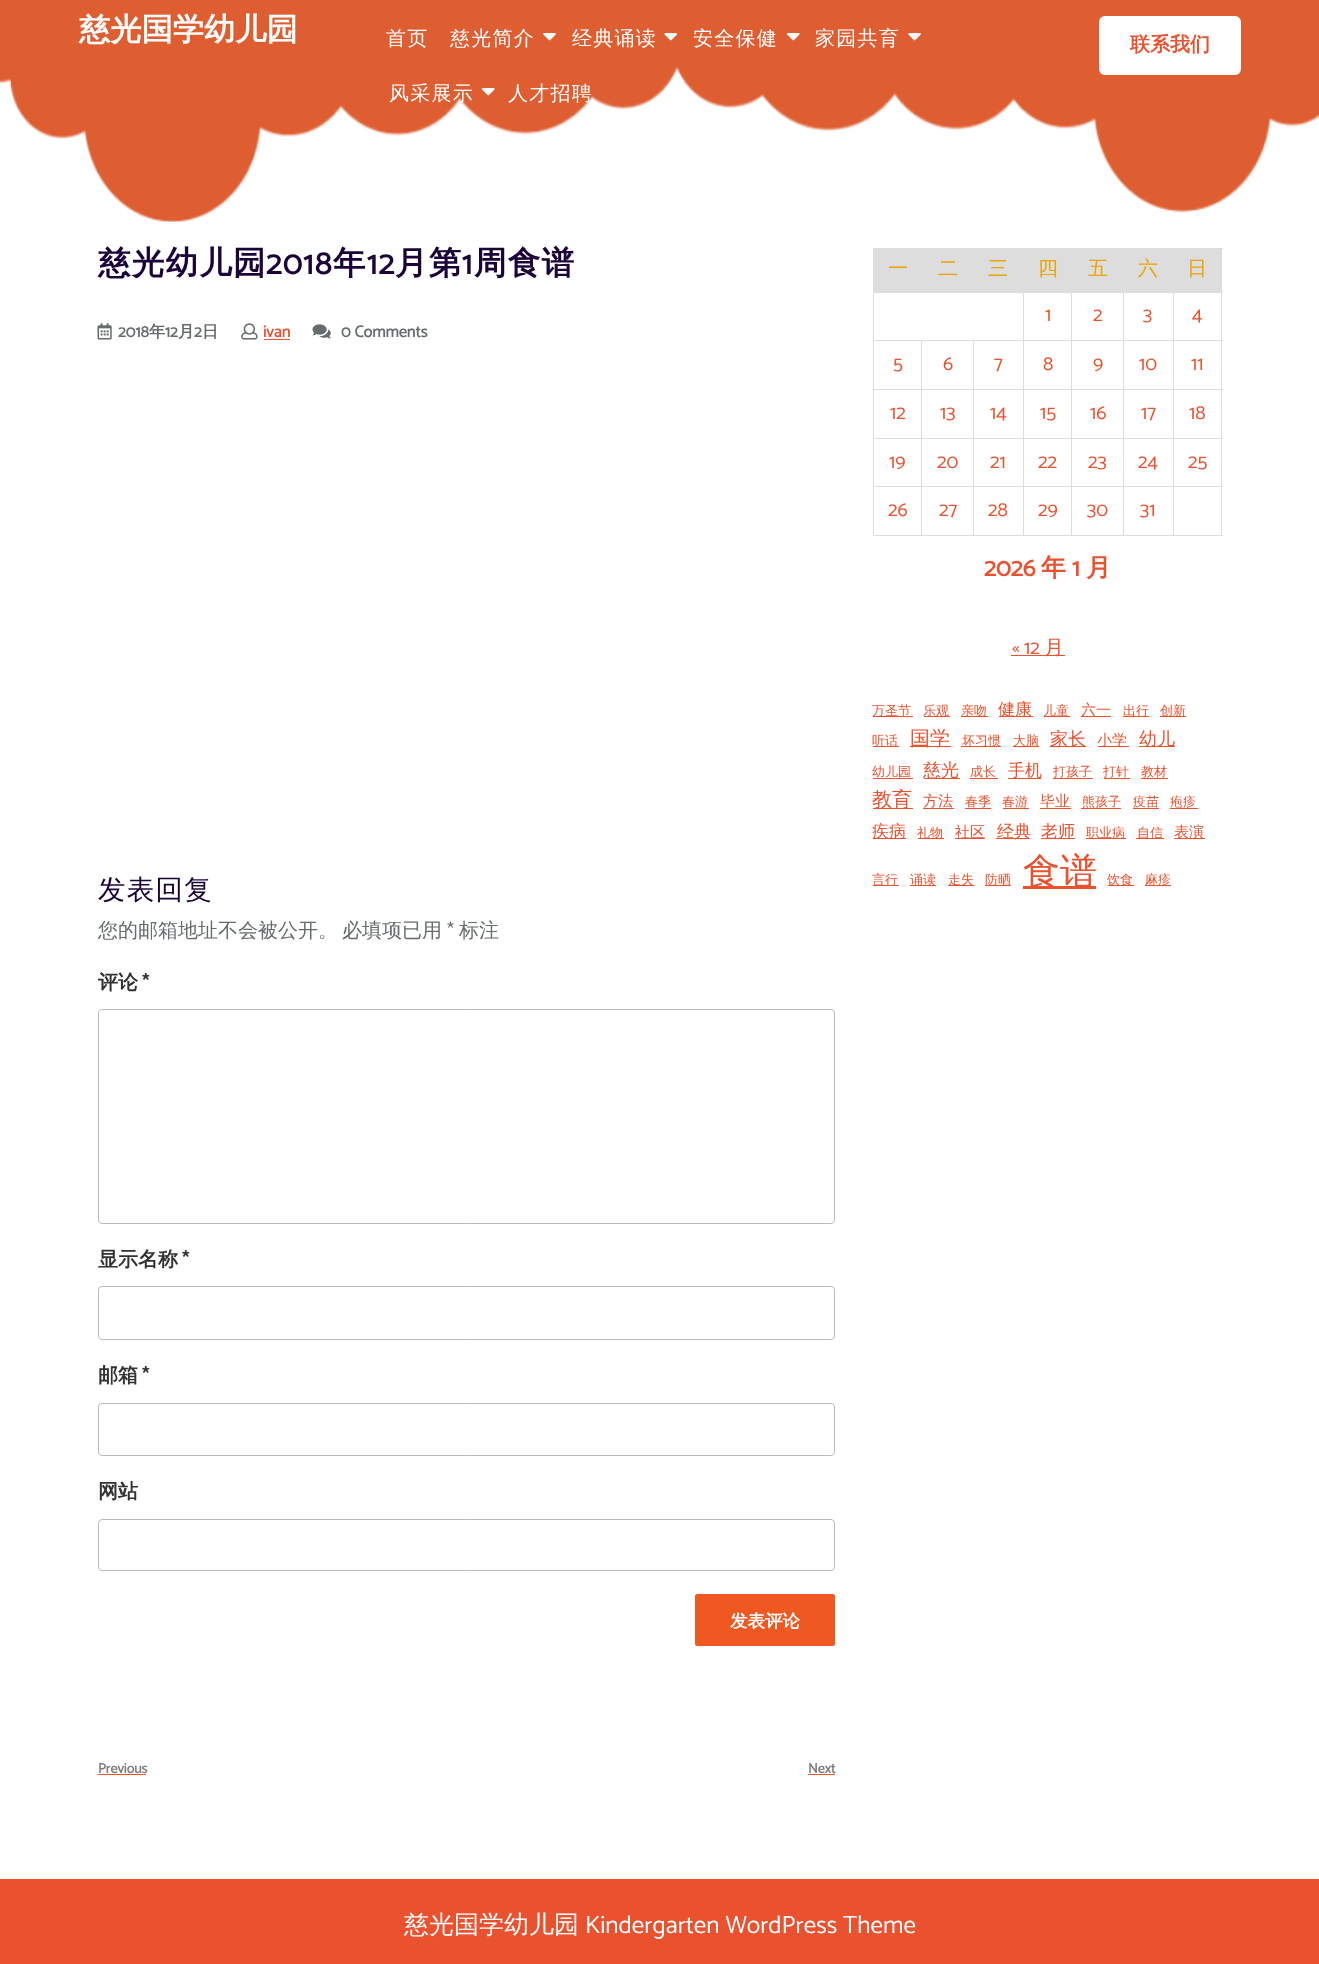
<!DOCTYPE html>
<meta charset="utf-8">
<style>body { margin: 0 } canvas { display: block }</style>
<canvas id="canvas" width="1319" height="1964"></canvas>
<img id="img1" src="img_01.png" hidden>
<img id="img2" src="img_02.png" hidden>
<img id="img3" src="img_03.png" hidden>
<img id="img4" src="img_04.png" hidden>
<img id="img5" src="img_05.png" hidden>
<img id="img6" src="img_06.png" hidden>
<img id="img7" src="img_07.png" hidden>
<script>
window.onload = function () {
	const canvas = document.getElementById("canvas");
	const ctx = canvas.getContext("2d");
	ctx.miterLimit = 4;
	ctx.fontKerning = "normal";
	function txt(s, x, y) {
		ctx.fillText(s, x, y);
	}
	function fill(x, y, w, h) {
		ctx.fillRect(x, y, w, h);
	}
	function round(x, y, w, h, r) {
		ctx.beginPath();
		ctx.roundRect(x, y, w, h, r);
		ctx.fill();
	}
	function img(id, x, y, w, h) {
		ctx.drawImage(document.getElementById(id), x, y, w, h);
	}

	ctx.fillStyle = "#FFFFFF";
	fill(0, 0, 1319, 1964);
	img("img1", 0, 0, 1319, 222);
	img("img2", 543, 33, 13, 8);
	img("img3", 664, 33, 13, 8);
	img("img4", 787, 33, 13, 8);
	img("img2", 908, 33, 13, 8);
	img("img4", 482, 88, 13, 8);
	round(1099, 16, 142, 59, 6);
	img("img5", 97, 323, 15, 17);
	img("img6", 241, 323, 17, 17);
	ctx.fillStyle = "#EA512E";
	fill(264, 339, 26, 1);
	img("img7", 312, 324, 19, 15);
	ctx.beginPath();
	ctx.roundRect(98.5, 1009.5, 736, 214, 3.5);
	ctx.strokeStyle = "#BBBBBB";
	ctx.stroke();
	ctx.beginPath();
	ctx.roundRect(98.5, 1286.5, 736, 53, 3.5);
	ctx.stroke();
	ctx.beginPath();
	ctx.roundRect(98.5, 1403.5, 736, 52, 3.5);
	ctx.stroke();
	ctx.beginPath();
	ctx.roundRect(98.5, 1519.5, 736, 51, 3.5);
	ctx.stroke();
	ctx.fillStyle = "#EF5921";
	round(695, 1594, 140, 52, 2.5);
	ctx.fillStyle = "#EA512E";
	fill(98, 1774, 48, 1);
	fill(808, 1774, 27, 1);
	ctx.fillStyle = "#DDDDDD";
	fill(873, 249, 348, 44);
	fill(873, 248, 350, 1);
	fill(1221, 291, 2, 1);
	fill(1173, 340, 50, 1);
	fill(1173, 389, 50, 1);
	fill(1173, 438, 50, 1);
	fill(1173, 486, 50, 1);
	fill(1221, 486, 1, 50);
	fill(1221, 438, 1, 50);
	fill(1221, 389, 1, 50);
	fill(1221, 340, 1, 50);
	fill(1221, 291, 1, 50);
	fill(1221, 248, 1, 45);
	fill(1173, 535, 50, 1);
	fill(1173, 486, 1, 50);
	fill(1123, 486, 51, 1);
	fill(1173, 438, 1, 50);
	fill(1123, 438, 51, 1);
	fill(1173, 389, 1, 50);
	fill(1123, 389, 51, 1);
	fill(1173, 340, 1, 50);
	fill(1123, 340, 51, 1);
	fill(1123, 535, 51, 1);
	fill(1123, 486, 1, 50);
	fill(1071, 486, 53, 1);
	fill(1123, 438, 1, 50);
	fill(1071, 438, 53, 1);
	fill(1123, 389, 1, 50);
	fill(1071, 389, 53, 1);
	fill(1123, 340, 1, 50);
	fill(1071, 340, 53, 1);
	fill(1071, 535, 53, 1);
	fill(1071, 486, 1, 50);
	fill(1023, 486, 50, 1);
	fill(1071, 438, 1, 50);
	fill(1023, 438, 50, 1);
	fill(1071, 389, 1, 50);
	fill(1023, 389, 50, 1);
	fill(1071, 340, 1, 50);
	fill(1023, 340, 50, 1);
	fill(1023, 535, 50, 1);
	fill(1023, 486, 1, 50);
	fill(973, 486, 51, 1);
	fill(1023, 438, 1, 50);
	fill(973, 438, 51, 1);
	fill(1023, 389, 1, 50);
	fill(973, 389, 51, 1);
	fill(1023, 340, 1, 50);
	fill(973, 340, 51, 1);
	fill(1023, 291, 1, 50);
	fill(1071, 291, 1, 50);
	fill(1123, 291, 1, 50);
	fill(1173, 291, 1, 50);
	fill(973, 535, 51, 1);
	fill(973, 486, 1, 50);
	fill(921, 486, 53, 1);
	fill(973, 438, 1, 50);
	fill(921, 438, 53, 1);
	fill(973, 389, 1, 50);
	fill(921, 389, 53, 1);
	fill(973, 340, 1, 50);
	fill(921, 340, 53, 1);
	fill(921, 535, 53, 1);
	fill(921, 486, 1, 50);
	fill(873, 486, 50, 1);
	fill(921, 438, 1, 50);
	fill(873, 438, 50, 1);
	fill(921, 389, 1, 50);
	fill(873, 389, 50, 1);
	fill(921, 340, 1, 50);
	fill(873, 340, 50, 1);
	fill(873, 535, 50, 1);
	fill(873, 486, 1, 50);
	fill(873, 438, 1, 50);
	fill(873, 389, 1, 50);
	fill(873, 291, 1, 99);
	ctx.fillStyle = "#EA512E";
	fill(1011, 655, 54, 1);
	fill(873, 716, 40, 1);
	fill(924, 716, 26, 1);
	fill(961, 716, 27, 1);
	fill(999, 716, 34, 1);
	fill(1044, 716, 26, 1);
	fill(1081, 716, 30, 1);
	fill(1123, 716, 26, 1);
	fill(1160, 716, 26, 1);
	fill(873, 746, 26, 1);
	fill(910, 746, 41, 1);
	fill(961, 746, 40, 1);
	fill(1013, 746, 26, 1);
	fill(1050, 746, 36, 1);
	fill(1098, 746, 31, 1);
	fill(1139, 746, 36, 1);
	fill(873, 778, 40, 1);
	fill(924, 778, 36, 1);
	fill(970, 778, 28, 1);
	fill(1008, 778, 33, 1);
	fill(1053, 778, 40, 1);
	fill(1104, 778, 26, 1);
	fill(1141, 778, 27, 1);
	fill(873, 808, 40, 1);
	fill(923, 808, 31, 1);
	fill(965, 808, 26, 1);
	fill(1003, 808, 26, 1);
	fill(1040, 808, 31, 1);
	fill(1081, 808, 40, 1);
	fill(1133, 808, 26, 1);
	fill(1170, 808, 28, 1);
	fill(873, 838, 33, 1);
	fill(918, 838, 26, 1);
	fill(955, 838, 30, 1);
	fill(996, 838, 34, 1);
	fill(1041, 838, 34, 1);
	fill(1086, 838, 40, 1);
	fill(1136, 838, 28, 1);
	fill(1174, 838, 31, 1);
	fill(873, 885, 26, 1);
	fill(910, 885, 26, 1);
	fill(948, 885, 26, 1);
	fill(985, 885, 26, 1);
	fill(1023, 886, 73, 3);
	fill(1108, 885, 26, 1);
	fill(1145, 885, 26, 1);
	fill(0, 1879, 1319, 85);
	ctx.font = "bold 31.25px WenQuanYi Zen Hei";
	ctx.fillStyle = "#FFFFFF";
	txt("慈光国学幼儿园", 79, 40);
	ctx.letterSpacing = "1.25px";
	ctx.font = "500 20px WenQuanYi Zen Hei";
	txt("首页", 386, 45);
	txt("慈光简介", 450, 45);
	txt("经典诵读", 572, 45);
	txt("安全保健", 693, 45);
	txt("家园共育", 815, 45);
	txt("风采展示", 389, 100);
	txt("人才招聘", 508, 100);
	ctx.letterSpacing = "0px";
	ctx.font = "bold 20px WenQuanYi Zen Hei";
	ctx.fillStyle = "#EA512E";
	txt("联系我们", 1130, 51);
	ctx.letterSpacing = "1.25px";
	ctx.font = "bold 32.5px WenQuanYi Zen Hei";
	ctx.fillStyle = "#1B0238";
	txt("慈光幼儿园", 98, 274);
	ctx.font = "bold 32.5px Catamaran";
	txt("2018", 266, 274);
	ctx.font = "bold 32.5px WenQuanYi Zen Hei";
	txt("年", 333, 274);
	ctx.font = "bold 32.5px Catamaran";
	txt("12", 367, 274);
	ctx.font = "bold 32.5px WenQuanYi Zen Hei";
	txt("月第", 395, 274);
	ctx.font = "bold 32.5px Catamaran";
	txt("1", 462, 274);
	ctx.font = "bold 32.5px WenQuanYi Zen Hei";
	txt("周食谱", 474, 274);
	ctx.letterSpacing = "0px";
	ctx.font = "bold 16.25px Catamaran";
	ctx.fillStyle = "#666C6E";
	txt("2018", 118, 337);
	ctx.font = "bold 16.25px WenQuanYi Zen Hei";
	txt("年", 149, 337);
	ctx.font = "bold 16.25px Catamaran";
	txt("12", 165, 337);
	ctx.font = "bold 16.25px WenQuanYi Zen Hei";
	txt("月", 178, 337);
	ctx.font = "bold 16.25px Catamaran";
	txt("2", 194, 337);
	ctx.font = "bold 16.25px WenQuanYi Zen Hei";
	txt("日", 202, 337);
	ctx.font = "bold 16.25px Catamaran";
	ctx.fillStyle = "#EA512E";
	txt("ivan", 263, 337);
	ctx.fillStyle = "#666C6E";
	txt("0 Comments", 341, 337);
	ctx.letterSpacing = "1.25px";
	ctx.font = "500 27.5px WenQuanYi Zen Hei";
	ctx.fillStyle = "#1B0238";
	txt("发表回复", 98, 899);
	ctx.letterSpacing = "0px";
	ctx.font = "500 20px WenQuanYi Zen Hei";
	ctx.fillStyle = "#666C6E";
	txt("您的邮箱地址不会被公开。", 98, 937);
	txt("必填项已用", 342, 937);
	ctx.font = "100 20px Catamaran";
	txt("*", 447, 937);
	ctx.font = "500 20px WenQuanYi Zen Hei";
	txt("标注", 459, 937);
	ctx.font = "bold 20px WenQuanYi Zen Hei";
	ctx.fillStyle = "#323232";
	txt("评论", 98, 989);
	ctx.font = "bold 20px Catamaran";
	txt("*", 142, 989);
	ctx.font = "bold 20px WenQuanYi Zen Hei";
	txt("显示名称", 98, 1266);
	ctx.font = "bold 20px Catamaran";
	txt("*", 182, 1266);
	ctx.font = "bold 20px WenQuanYi Zen Hei";
	txt("邮箱", 98, 1382);
	ctx.font = "bold 20px Catamaran";
	txt("*", 142, 1382);
	ctx.font = "bold 20px WenQuanYi Zen Hei";
	txt("网站", 98, 1498);
	ctx.font = "bold 17.5px WenQuanYi Zen Hei";
	ctx.fillStyle = "#FFFFFF";
	txt("发表评论", 730, 1627);
	ctx.font = "bold 14px Catamaran";
	ctx.fillStyle = "#7A7A7A";
	txt("Previous", 98, 1773);
	txt("Next", 808, 1773);
	ctx.font = "500 20px WenQuanYi Zen Hei";
	ctx.fillStyle = "#E9A502";
	txt("一", 888, 275);
	txt("二", 938, 275);
	txt("三", 988, 275);
	txt("四", 1038, 275);
	txt("五", 1088, 275);
	txt("六", 1138, 275);
	txt("日", 1187, 275);
	ctx.font = "100 20px Catamaran";
	ctx.fillStyle = "#EA512E";
	txt("1", 1045, 321);
	txt("2", 1093, 321);
	txt("3", 1143, 321);
	txt("4", 1192, 321);
	txt("5", 893, 370);
	txt("6", 943, 370);
	txt("7", 994, 370);
	txt("8", 1043, 370);
	txt("9", 1093, 370);
	txt("10", 1139, 370);
	txt("11", 1191, 370);
	txt("12", 890, 419);
	txt("13", 940, 419);
	txt("14", 990, 419);
	txt("15", 1040, 419);
	txt("16", 1090, 419);
	txt("17", 1141, 419);
	txt("18", 1189, 419);
	txt("19", 889, 468);
	txt("20", 937, 468);
	txt("21", 990, 468);
	txt("22", 1038, 468);
	txt("23", 1088, 468);
	txt("24", 1138, 468);
	txt("25", 1188, 468);
	txt("26", 888, 516);
	txt("27", 939, 516);
	txt("28", 988, 516);
	txt("29", 1038, 516);
	txt("30", 1087, 516);
	txt("31", 1140, 516);
	ctx.font = "bold 25px Catamaran";
	txt("2026", 984, 576);
	ctx.font = "bold 25px WenQuanYi Zen Hei";
	txt("年", 1041, 576);
	ctx.font = "bold 25px Catamaran";
	txt("1", 1072, 576);
	ctx.font = "bold 25px WenQuanYi Zen Hei";
	txt("月", 1086, 576);
	ctx.font = "100 20px Catamaran";
	txt("« 12", 1012, 654);
	ctx.font = "500 20px WenQuanYi Zen Hei";
	txt("月", 1044, 654);
	ctx.font = "500 13px WenQuanYi Zen Hei";
	txt("万圣节", 872, 715);
	txt("乐观", 923, 715);
	txt("亲吻", 961, 715);
	ctx.font = "500 17px WenQuanYi Zen Hei";
	txt("健康", 998, 715);
	ctx.font = "500 13px WenQuanYi Zen Hei";
	txt("儿童", 1043, 715);
	ctx.font = "500 15px WenQuanYi Zen Hei";
	txt("六一", 1081, 715);
	ctx.font = "500 13px WenQuanYi Zen Hei";
	txt("出行", 1123, 715);
	txt("创新", 1160, 715);
	txt("听话", 872, 745);
	ctx.font = "500 20px WenQuanYi Zen Hei";
	txt("国学", 910, 745);
	ctx.font = "500 13px WenQuanYi Zen Hei";
	txt("坏习惯", 962, 745);
	txt("大脑", 1013, 745);
	ctx.font = "500 18px WenQuanYi Zen Hei";
	txt("家长", 1050, 745);
	ctx.font = "500 15px WenQuanYi Zen Hei";
	txt("小学", 1097, 745);
	ctx.font = "500 18px WenQuanYi Zen Hei";
	txt("幼儿", 1139, 745);
	ctx.font = "500 13px WenQuanYi Zen Hei";
	txt("幼儿园", 872, 776);
	ctx.font = "500 18px WenQuanYi Zen Hei";
	txt("慈光", 923, 776);
	ctx.font = "500 13px WenQuanYi Zen Hei";
	txt("成长", 970, 776);
	ctx.font = "500 17px WenQuanYi Zen Hei";
	txt("手机", 1008, 776);
	ctx.font = "500 13px WenQuanYi Zen Hei";
	txt("打孩子", 1053, 776);
	txt("打针", 1103, 776);
	txt("教材", 1141, 776);
	ctx.font = "500 20px WenQuanYi Zen Hei";
	txt("教育", 872, 806);
	ctx.font = "500 15px WenQuanYi Zen Hei";
	txt("方法", 923, 806);
	ctx.font = "500 13px WenQuanYi Zen Hei";
	txt("春季", 965, 806);
	txt("春游", 1002, 806);
	ctx.font = "500 15px WenQuanYi Zen Hei";
	txt("毕业", 1040, 806);
	ctx.font = "500 13px WenQuanYi Zen Hei";
	txt("熊孩子", 1082, 806);
	txt("疫苗", 1133, 806);
	txt("疱疹", 1170, 806);
	ctx.font = "500 17px WenQuanYi Zen Hei";
	txt("疾病", 872, 837);
	ctx.font = "500 13px WenQuanYi Zen Hei";
	txt("礼物", 917, 837);
	ctx.font = "500 15px WenQuanYi Zen Hei";
	txt("社区", 955, 837);
	ctx.font = "500 17px WenQuanYi Zen Hei";
	txt("经典", 997, 837);
	txt("老师", 1041, 837);
	ctx.font = "500 13px WenQuanYi Zen Hei";
	txt("职业病", 1086, 837);
	txt("自信", 1137, 837);
	ctx.font = "500 15px WenQuanYi Zen Hei";
	txt("表演", 1174, 837);
	ctx.font = "500 13px WenQuanYi Zen Hei";
	txt("言行", 872, 884);
	txt("诵读", 910, 884);
	txt("走失", 948, 884);
	txt("防晒", 985, 884);
	ctx.font = "500 37px WenQuanYi Zen Hei";
	txt("食谱", 1023, 884);
	ctx.font = "500 13px WenQuanYi Zen Hei";
	txt("饮食", 1107, 884);
	txt("麻疹", 1145, 884);
	ctx.font = "500 25px WenQuanYi Zen Hei";
	ctx.fillStyle = "#FFFFFF";
	txt("慈光国学幼儿园", 404, 1933);
	ctx.font = "100 25px Catamaran";
	txt("Kindergarten WordPress Theme", 585, 1933);
};
</script>
